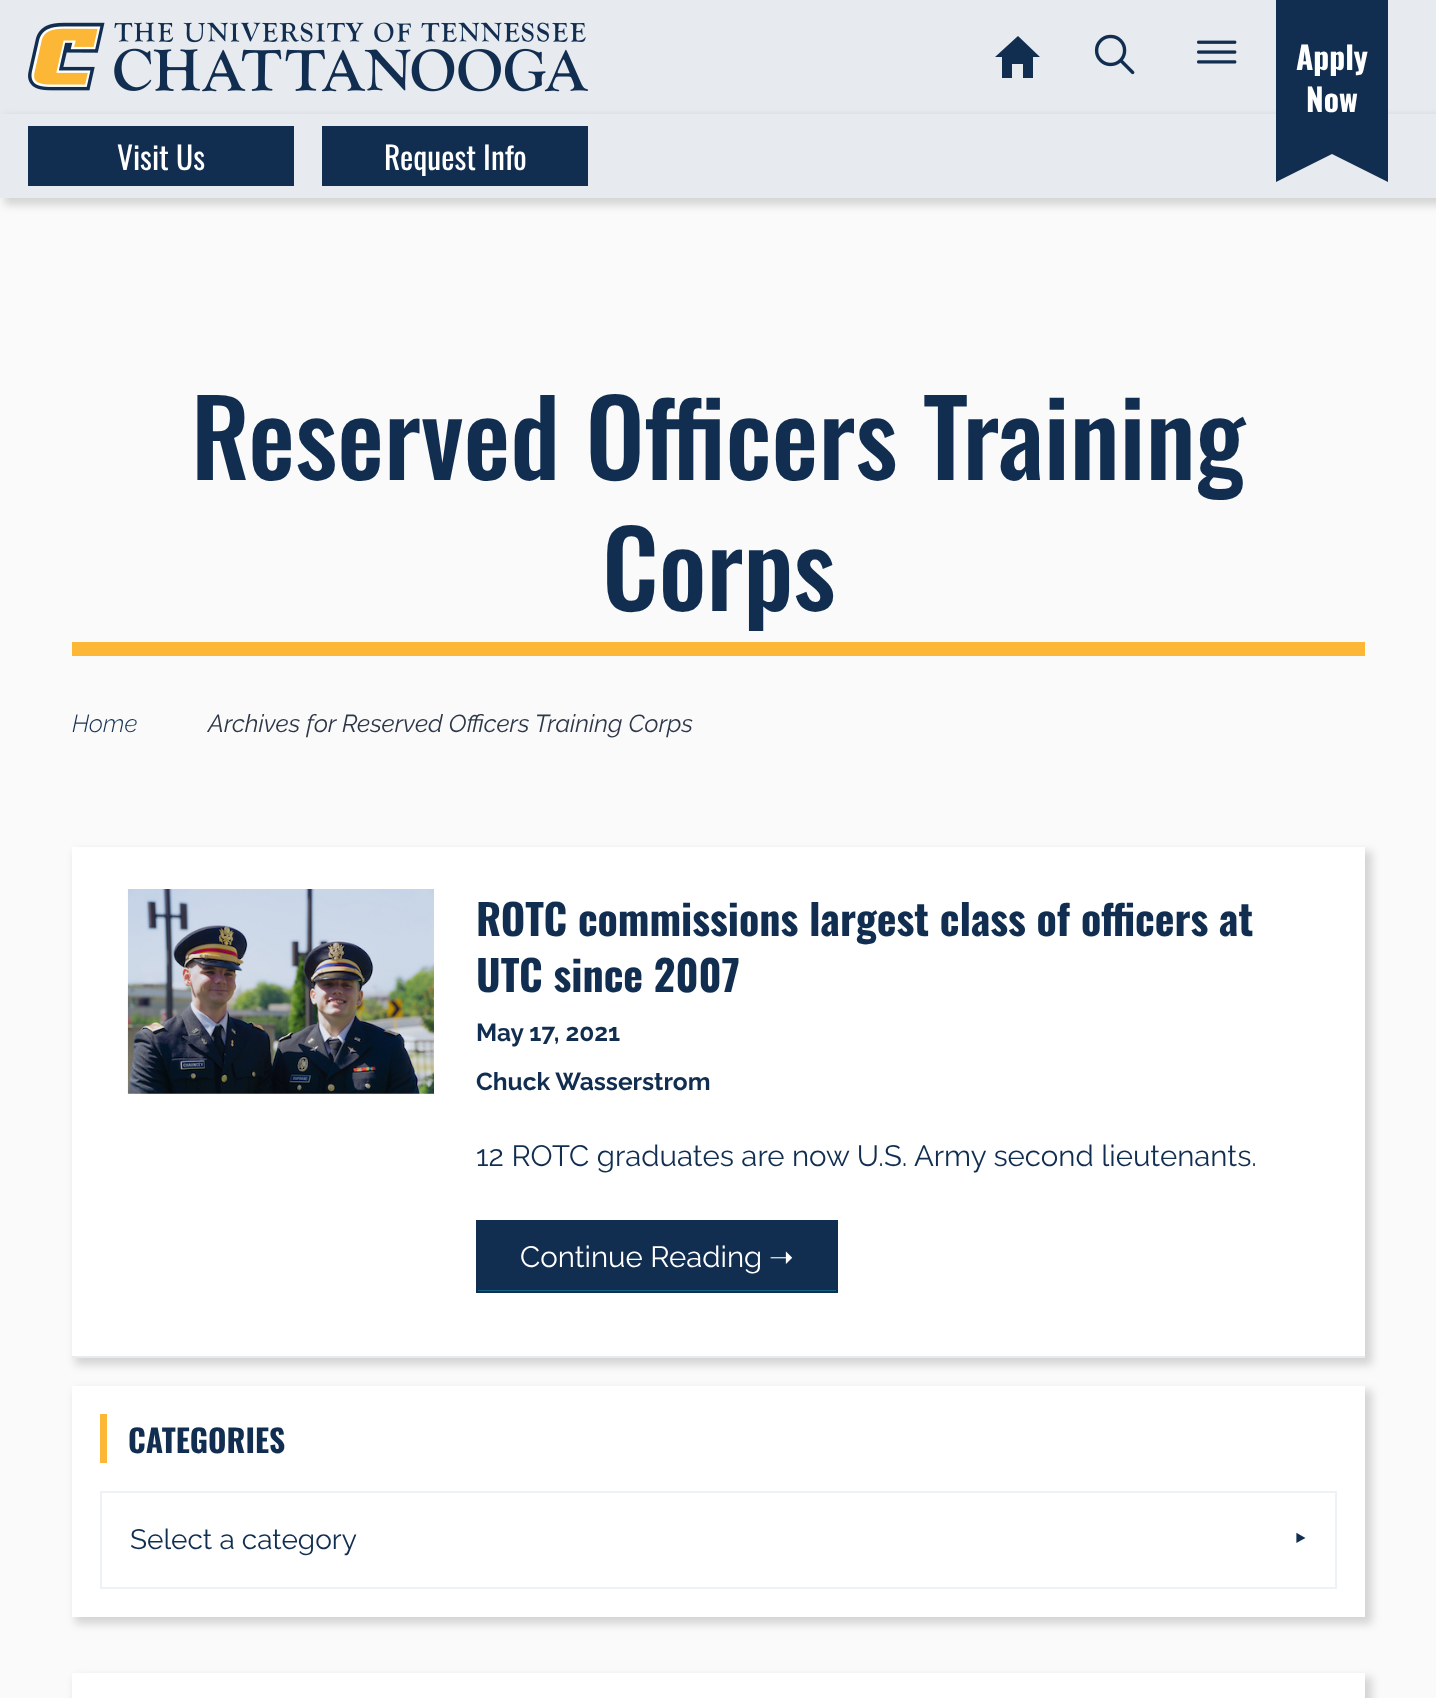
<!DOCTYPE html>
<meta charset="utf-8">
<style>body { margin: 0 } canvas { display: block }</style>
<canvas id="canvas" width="1436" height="1698"></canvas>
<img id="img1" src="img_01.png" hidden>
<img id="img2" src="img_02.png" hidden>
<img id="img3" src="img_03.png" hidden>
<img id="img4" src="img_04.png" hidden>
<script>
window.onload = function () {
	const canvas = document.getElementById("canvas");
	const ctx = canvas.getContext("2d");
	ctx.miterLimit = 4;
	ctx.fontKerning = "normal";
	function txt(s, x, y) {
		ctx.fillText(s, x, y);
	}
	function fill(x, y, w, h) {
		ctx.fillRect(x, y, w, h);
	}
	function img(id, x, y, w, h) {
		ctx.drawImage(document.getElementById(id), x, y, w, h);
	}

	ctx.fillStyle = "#FAFAFA";
	fill(0, 0, 1436, 1698);
	ctx.fillStyle = "#E7EAEE";
	fill(0, 0, 1436, 198);
	img("img1", 1197, 40, 40, 24);
	img("img2", 28, 22, 560, 70);
	ctx.fillStyle = "#112E51";
	ctx.beginPath();
	ctx.moveTo(1012, 78);
	ctx.lineTo(1002, 78);
	ctx.lineTo(1002, 57);
	ctx.lineTo(995, 57);
	ctx.lineTo(1018, 36);
	ctx.lineTo(1040, 57);
	ctx.lineTo(1033, 57);
	ctx.lineTo(1033, 78);
	ctx.lineTo(1023, 78);
	ctx.lineTo(1023, 64);
	ctx.lineTo(1012, 64);
	ctx.closePath();
	ctx.fill();
	img("img3", 1094, 34, 41, 41);
	ctx.save();
	ctx.beginPath();
	ctx.moveTo(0, 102);
	ctx.lineTo(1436, 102);
	ctx.lineTo(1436, 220);
	ctx.lineTo(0, 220);
	ctx.closePath();
	ctx.moveTo(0, 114);
	ctx.lineTo(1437, 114);
	ctx.lineTo(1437, 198);
	ctx.lineTo(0, 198);
	ctx.closePath();
	ctx.clip("evenodd");
	ctx.fillStyle = "rgba(0, 0, 0, 0.15)";
	ctx.filter = "blur(4.5px)";
	ctx.beginPath();
	ctx.rect(4, 117, 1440, 88);
	ctx.fill();
	ctx.filter = "none";
	ctx.restore();
	ctx.beginPath();
	ctx.moveTo(1276, -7);
	ctx.lineTo(1276, 182);
	ctx.lineTo(1332, 154);
	ctx.lineTo(1388, 182);
	ctx.lineTo(1388, -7);
	ctx.closePath();
	ctx.fill();
	fill(28, 126, 266, 60);
	fill(322, 126, 266, 60);
	ctx.fillStyle = "#FDB736";
	fill(72, 642, 1293, 14);
	ctx.fillStyle = "rgba(0, 0, 0, 0.15)";
	ctx.filter = "blur(4.5px)";
	ctx.beginPath();
	ctx.rect(75, 851, 1297, 514);
	ctx.fill();
	ctx.filter = "none";
	ctx.fillStyle = "#FFFFFF";
	fill(72, 847, 1293, 509);
	ctx.fillStyle = "#E7EAEE";
	fill(72, 1356, 1293, 2);
	img("img4", 127, 889, 307, 205);
	ctx.fillStyle = "#112E51";
	fill(478, 1222, 358, 68);
	ctx.fillStyle = "#116484";
	fill(478, 1290, 359, 1);
	ctx.strokeStyle = "#112E51";
	ctx.lineWidth = 2;
	ctx.strokeRect(477, 1221, 360, 71);
	ctx.fillStyle = "rgba(0, 0, 0, 0.15)";
	ctx.filter = "blur(4.5px)";
	ctx.beginPath();
	ctx.rect(75, 1390, 1297, 234);
	ctx.fill();
	ctx.filter = "none";
	ctx.fillStyle = "#FFFFFF";
	fill(72, 1386, 1293, 231);
	ctx.fillStyle = "#FDB736";
	fill(100, 1414, 7, 49);
	ctx.strokeStyle = "#EDF2F7";
	ctx.strokeRect(101, 1492, 1235, 96);
	ctx.fillStyle = "rgba(0, 0, 0, 0.15)";
	ctx.filter = "blur(4.5px)";
	ctx.beginPath();
	ctx.rect(75, 1677, 1297, 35);
	ctx.fill();
	ctx.filter = "none";
	ctx.fillStyle = "#FFFFFF";
	fill(72, 1673, 1293, 25);
	ctx.font = "bold 31.5px Oswald";
	txt("Apply", 1296, 70);
	txt("Now", 1306, 112);
	ctx.font = "31.5px Oswald";
	txt("Visit Us", 117, 170);
	txt("Request Info", 384, 170);
	ctx.font = "500 105px Oswald";
	ctx.fillStyle = "#112E51";
	txt("Reserved Officers Training", 191, 480);
	txt("Corps", 602, 611);
	ctx.font = "italic 300 24.5px Raleway";
	txt("Home", 72, 732);
	ctx.font = "italic 24.5px Raleway";
	ctx.fillStyle = "#2D3748";
	txt("Archives for Reserved Officers Training Corps", 208, 732);
	ctx.font = "bold 42px Oswald";
	ctx.fillStyle = "#112E51";
	txt("ROTC commissions largest class of officers at", 476, 936);
	txt("UTC since 2007", 476, 992);
	ctx.font = "bold 24.5px Raleway";
	txt("May 17, 2021", 476, 1041);
	txt("Chuck Wasserstrom", 476, 1090);
	ctx.font = "29.4px Raleway";
	txt("12 ROTC graduates are now U.S. Army second lieutenants.", 476, 1166);
	ctx.fillStyle = "#FFFFFF";
	txt("Continue Reading", 520, 1267);
	ctx.font = "29.4px DejaVu Sans";
	txt("➝", 769, 1267);
	ctx.font = "bold 31.5px Oswald";
	ctx.fillStyle = "#112E51";
	txt("CATEGORIES", 128, 1453);
	ctx.font = "28px Raleway";
	txt("Select a category", 130, 1549);
	ctx.font = "35px Noto Sans";
	txt("‣", 1294, 1551);
};
</script>
